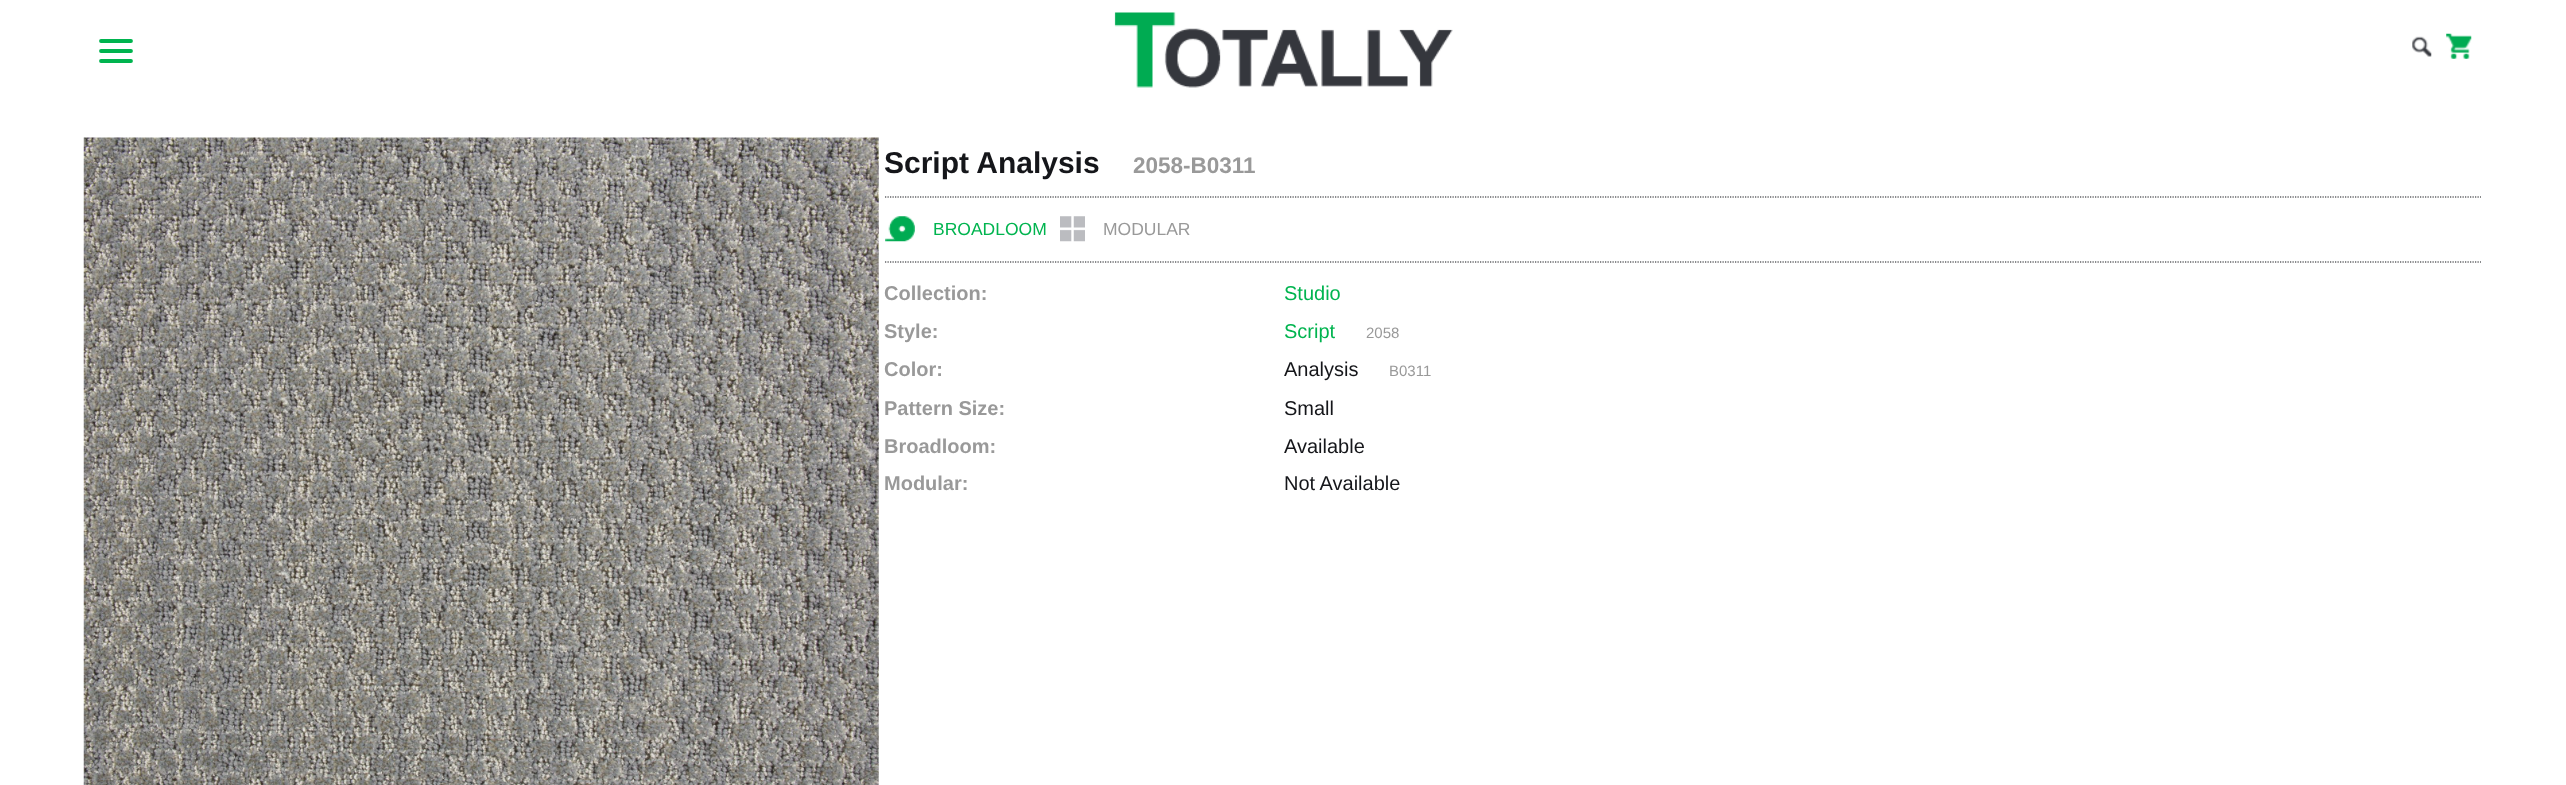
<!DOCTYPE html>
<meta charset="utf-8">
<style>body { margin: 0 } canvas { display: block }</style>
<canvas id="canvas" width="2566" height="785"></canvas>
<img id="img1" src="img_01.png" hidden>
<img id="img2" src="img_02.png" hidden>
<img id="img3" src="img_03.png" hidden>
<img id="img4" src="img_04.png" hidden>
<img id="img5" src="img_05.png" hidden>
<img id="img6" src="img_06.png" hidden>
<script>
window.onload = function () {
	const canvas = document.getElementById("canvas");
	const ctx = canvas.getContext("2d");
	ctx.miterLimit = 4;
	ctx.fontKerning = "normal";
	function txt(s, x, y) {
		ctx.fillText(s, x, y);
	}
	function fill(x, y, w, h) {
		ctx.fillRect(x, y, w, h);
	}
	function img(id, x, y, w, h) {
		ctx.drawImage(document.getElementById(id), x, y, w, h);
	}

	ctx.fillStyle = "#FFFFFF";
	fill(0, 0, 2566, 785);
	ctx.beginPath();
	ctx.moveTo(101, 41);
	ctx.lineTo(131, 41);
	ctx.moveTo(101, 51);
	ctx.lineTo(131, 51);
	ctx.moveTo(101, 61);
	ctx.lineTo(131, 61);
	ctx.strokeStyle = "#00B44F";
	ctx.lineWidth = 3.8;
	ctx.lineCap = "round";
	ctx.stroke();
	img("img1", 1114, 12, 339, 76);
	img("img2", 2412, 36, 20, 21);
	img("img3", 2446, 33, 26, 26);
	img("img4", 83, 137, 796, 648);
	ctx.beginPath();
	ctx.moveTo(885, 197);
	ctx.lineTo(2481, 197);
	ctx.strokeStyle = "#15161A";
	ctx.lineWidth = 1.2;
	ctx.lineCap = "butt";
	ctx.setLineDash([1.25, 1.25]);
	ctx.stroke();
	ctx.beginPath();
	ctx.moveTo(885, 262);
	ctx.lineTo(2481, 262);
	ctx.stroke();
	img("img5", 885, 216, 30, 26);
	img("img6", 1060, 216, 25, 26);
	ctx.font = "bold 30px Liberation Sans";
	ctx.fillStyle = "#15161A";
	txt("Script Analysis", 884, 173);
	ctx.font = "bold 22.5px Liberation Sans";
	ctx.fillStyle = "#999999";
	txt("2058-B0311", 1133, 173);
	ctx.font = "17.5px Liberation Sans";
	ctx.fillStyle = "#00B44F";
	txt("BROADLOOM", 933, 235);
	ctx.fillStyle = "#999999";
	txt("MODULAR", 1103, 235);
	ctx.font = "bold 20px Liberation Sans";
	txt("Collection:", 884, 300);
	ctx.font = "20px Liberation Sans";
	ctx.fillStyle = "#00B44F";
	txt("Studio", 1284, 300);
	ctx.font = "bold 20px Liberation Sans";
	ctx.fillStyle = "#999999";
	txt("Style:", 884, 338);
	ctx.font = "20px Liberation Sans";
	ctx.fillStyle = "#00B44F";
	txt("Script", 1284, 338);
	ctx.font = "15px Liberation Sans";
	ctx.fillStyle = "#999999";
	txt("2058", 1366, 338);
	ctx.font = "bold 20px Liberation Sans";
	txt("Color:", 884, 376);
	ctx.font = "20px Liberation Sans";
	ctx.fillStyle = "#15161A";
	txt("Analysis", 1284, 376);
	ctx.font = "15px Liberation Sans";
	ctx.fillStyle = "#999999";
	txt("B0311", 1389, 376);
	ctx.font = "bold 20px Liberation Sans";
	txt("Pattern Size:", 884, 415);
	ctx.font = "20px Liberation Sans";
	ctx.fillStyle = "#15161A";
	txt("Small", 1284, 415);
	ctx.font = "bold 20px Liberation Sans";
	ctx.fillStyle = "#999999";
	txt("Broadloom:", 884, 453);
	ctx.font = "20px Liberation Sans";
	ctx.fillStyle = "#15161A";
	txt("Available", 1284, 453);
	ctx.font = "bold 20px Liberation Sans";
	ctx.fillStyle = "#999999";
	txt("Modular:", 884, 490);
	ctx.font = "20px Liberation Sans";
	ctx.fillStyle = "#15161A";
	txt("Not Available", 1284, 490);
};
</script>
